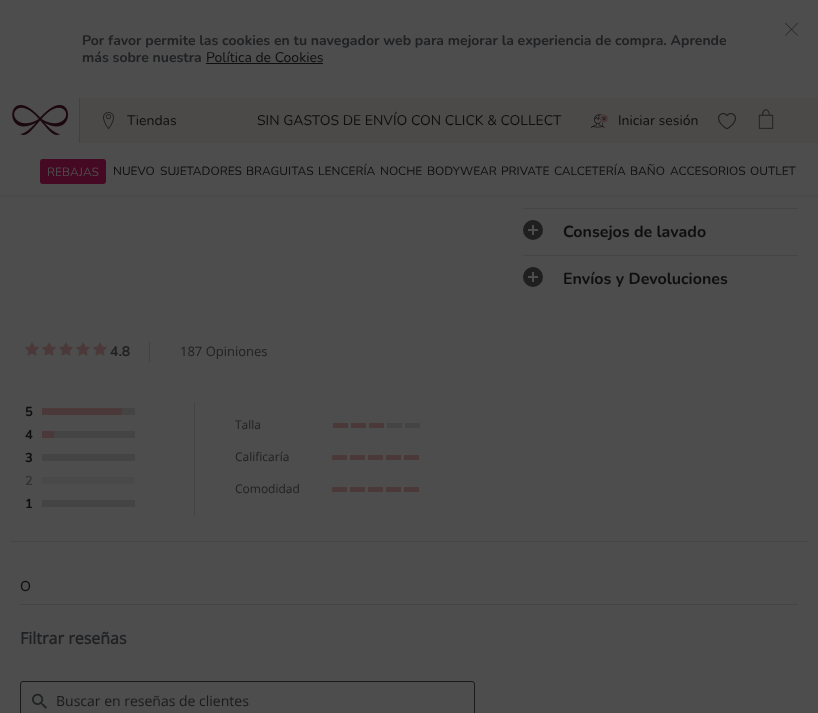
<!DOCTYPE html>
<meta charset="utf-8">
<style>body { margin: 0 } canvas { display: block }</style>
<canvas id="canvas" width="818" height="713"></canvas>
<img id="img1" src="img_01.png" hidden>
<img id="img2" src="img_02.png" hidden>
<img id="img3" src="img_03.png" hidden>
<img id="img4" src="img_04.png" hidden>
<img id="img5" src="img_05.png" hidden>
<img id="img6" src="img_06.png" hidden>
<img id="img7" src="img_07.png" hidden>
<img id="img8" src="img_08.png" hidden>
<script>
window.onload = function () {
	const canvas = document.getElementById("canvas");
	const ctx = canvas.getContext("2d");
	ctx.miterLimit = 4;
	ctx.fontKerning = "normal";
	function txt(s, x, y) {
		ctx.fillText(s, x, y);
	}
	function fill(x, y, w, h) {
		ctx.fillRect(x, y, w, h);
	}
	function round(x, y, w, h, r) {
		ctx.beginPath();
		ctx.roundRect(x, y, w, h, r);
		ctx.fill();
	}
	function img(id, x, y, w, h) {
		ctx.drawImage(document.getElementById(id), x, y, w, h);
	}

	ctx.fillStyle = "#4D4D4D";
	fill(0, 0, 818, 713);
	ctx.fillStyle = "#4A4A4A";
	fill(0, 195, 818, 2);
	img("img1", 785, 22, 13, 14);
	ctx.fillStyle = "#0F0F0F";
	fill(206, 63, 117, 1);
	ctx.fillStyle = "#4C4949";
	fill(80, 98, 738, 45);
	ctx.fillStyle = "#4B3D3E";
	fill(79, 98, 1, 45);
	img("img2", 12, 105, 57, 30);
	img("img3", 103, 112, 11, 17);
	img("img4", 591, 114, 17, 14);
	img("img5", 718, 113, 18, 17);
	img("img6", 758, 109, 16, 20);
	ctx.fillStyle = "#460923";
	round(40, 159, 66, 25, 3);
	ctx.fillStyle = "#454545";
	fill(523, 208, 275, 1);
	ctx.fillStyle = "#1F1F1F";
	ctx.beginPath();
	ctx.arc(533, 230, 10, 0, Math.PI * 2);
	ctx.fill();
	ctx.fillStyle = "#4D4D4D";
	fill(528, 229, 10, 2);
	fill(532, 225, 2, 10);
	ctx.fillStyle = "#454545";
	fill(523, 255, 275, 1);
	ctx.fillStyle = "#1F1F1F";
	ctx.beginPath();
	ctx.arc(533, 277, 10, 0, Math.PI * 2);
	ctx.fill();
	ctx.fillStyle = "#4D4D4D";
	fill(528, 276, 10, 2);
	fill(532, 272, 2, 10);
	ctx.fillStyle = "#454545";
	fill(10, 541, 798, 1);
	ctx.fillStyle = "#424243";
	fill(149, 342, 1, 20);
	img("img7", 25, 342, 14, 14);
	img("img7", 42, 342, 14, 14);
	img("img7", 59, 342, 14, 14);
	img("img7", 76, 342, 14, 14);
	img("img7", 93, 342, 14, 14);
	ctx.fillStyle = "#444444";
	fill(194, 402, 1, 114);
	fill(122, 408, 13, 7);
	ctx.fillStyle = "#4B393A";
	fill(42, 408, 80, 7);
	ctx.fillStyle = "#444444";
	fill(54, 431, 81, 7);
	ctx.fillStyle = "#4B393A";
	fill(42, 431, 12, 7);
	ctx.fillStyle = "#444444";
	fill(42, 454, 93, 7);
	ctx.fillStyle = "#494949";
	fill(42, 477, 93, 7);
	ctx.fillStyle = "#444444";
	fill(42, 500, 93, 7);
	ctx.fillStyle = "#4B393A";
	fill(333, 423, 15, 5);
	fill(351, 423, 15, 5);
	fill(369, 423, 15, 5);
	ctx.fillStyle = "#444444";
	fill(387, 423, 15, 5);
	fill(405, 423, 15, 5);
	ctx.fillStyle = "#4B393A";
	fill(332, 455, 15, 5);
	fill(350, 455, 15, 5);
	fill(368, 455, 15, 5);
	fill(386, 455, 15, 5);
	fill(404, 455, 15, 5);
	fill(332, 487, 15, 5);
	fill(350, 487, 15, 5);
	fill(368, 487, 15, 5);
	fill(386, 487, 15, 5);
	fill(404, 487, 15, 5);
	ctx.fillStyle = "#444444";
	fill(20, 604, 778, 1);
	img("img8", 32, 693, 15, 16);
	ctx.beginPath();
	ctx.roundRect(20.5, 681.5, 454, 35, 2.5);
	ctx.strokeStyle = "#1A1A1A";
	ctx.stroke();
	ctx.font = "bold 14px Nunito";
	ctx.fillStyle = "#202123";
	txt("Por favor permite las cookies en tu navegador web para mejorar la experiencia de compra. Aprende", 82, 45);
	txt("más sobre nuestra", 82, 62);
	ctx.font = "14px Nunito";
	ctx.fillStyle = "#0F0F0F";
	txt("Política de Cookies", 206, 62);
	txt("SIN GASTOS DE ENVÍO CON CLICK & COLLECT", 257, 125);
	txt("Tiendas", 127, 125);
	txt("Iniciar sesión", 618, 125);
	ctx.font = "12px Nunito";
	ctx.fillStyle = "#4D4D4D";
	txt("REBAJAS", 47, 176);
	ctx.fillStyle = "#0F0F0F";
	txt("NUEVO", 113, 175);
	txt("SUJETADORES", 160, 175);
	txt("BRAGUITAS", 246, 175);
	txt("LENCERÍA", 318, 175);
	txt("NOCHE", 380, 175);
	txt("BODYWEAR", 427, 175);
	txt("PRIVATE", 501, 175);
	txt("CALCETERÍA", 554, 175);
	txt("BAÑO", 630, 175);
	txt("ACCESORIOS", 670, 175);
	txt("OUTLET", 750, 175);
	ctx.font = "bold 16px Nunito";
	txt("Consejos de lavado", 563, 237);
	txt("Envíos y Devoluciones", 563, 284);
	ctx.font = "bold 14px Nunito";
	ctx.fillStyle = "#202123";
	txt("4.8", 110, 356);
	ctx.font = "13px Open Sans";
	txt("187 Opiniones", 180, 356);
	ctx.font = "bold 13px Nunito";
	ctx.fillStyle = "#0F0F0F";
	txt("5", 25, 416);
	txt("4", 25, 439);
	txt("3", 25, 462);
	ctx.fillStyle = "#343434";
	txt("2", 25, 485);
	ctx.fillStyle = "#0F0F0F";
	txt("1", 25, 508);
	ctx.font = "12px Open Sans";
	ctx.fillStyle = "#202123";
	txt("Talla", 235, 429);
	txt("Calificaría", 235, 461);
	txt("Comodidad", 235, 493);
	ctx.font = "14px Noto Sans";
	ctx.fillStyle = "#0F0F0F";
	txt("O", 20, 591);
	ctx.font = "bold 16px Open Sans";
	ctx.fillStyle = "#202123";
	txt("Filtrar reseñas", 20, 644);
	ctx.font = "14px Open Sans";
	ctx.fillStyle = "#1A1A1A";
	txt("Buscar en reseñas de clientes", 56, 706);
};
</script>
